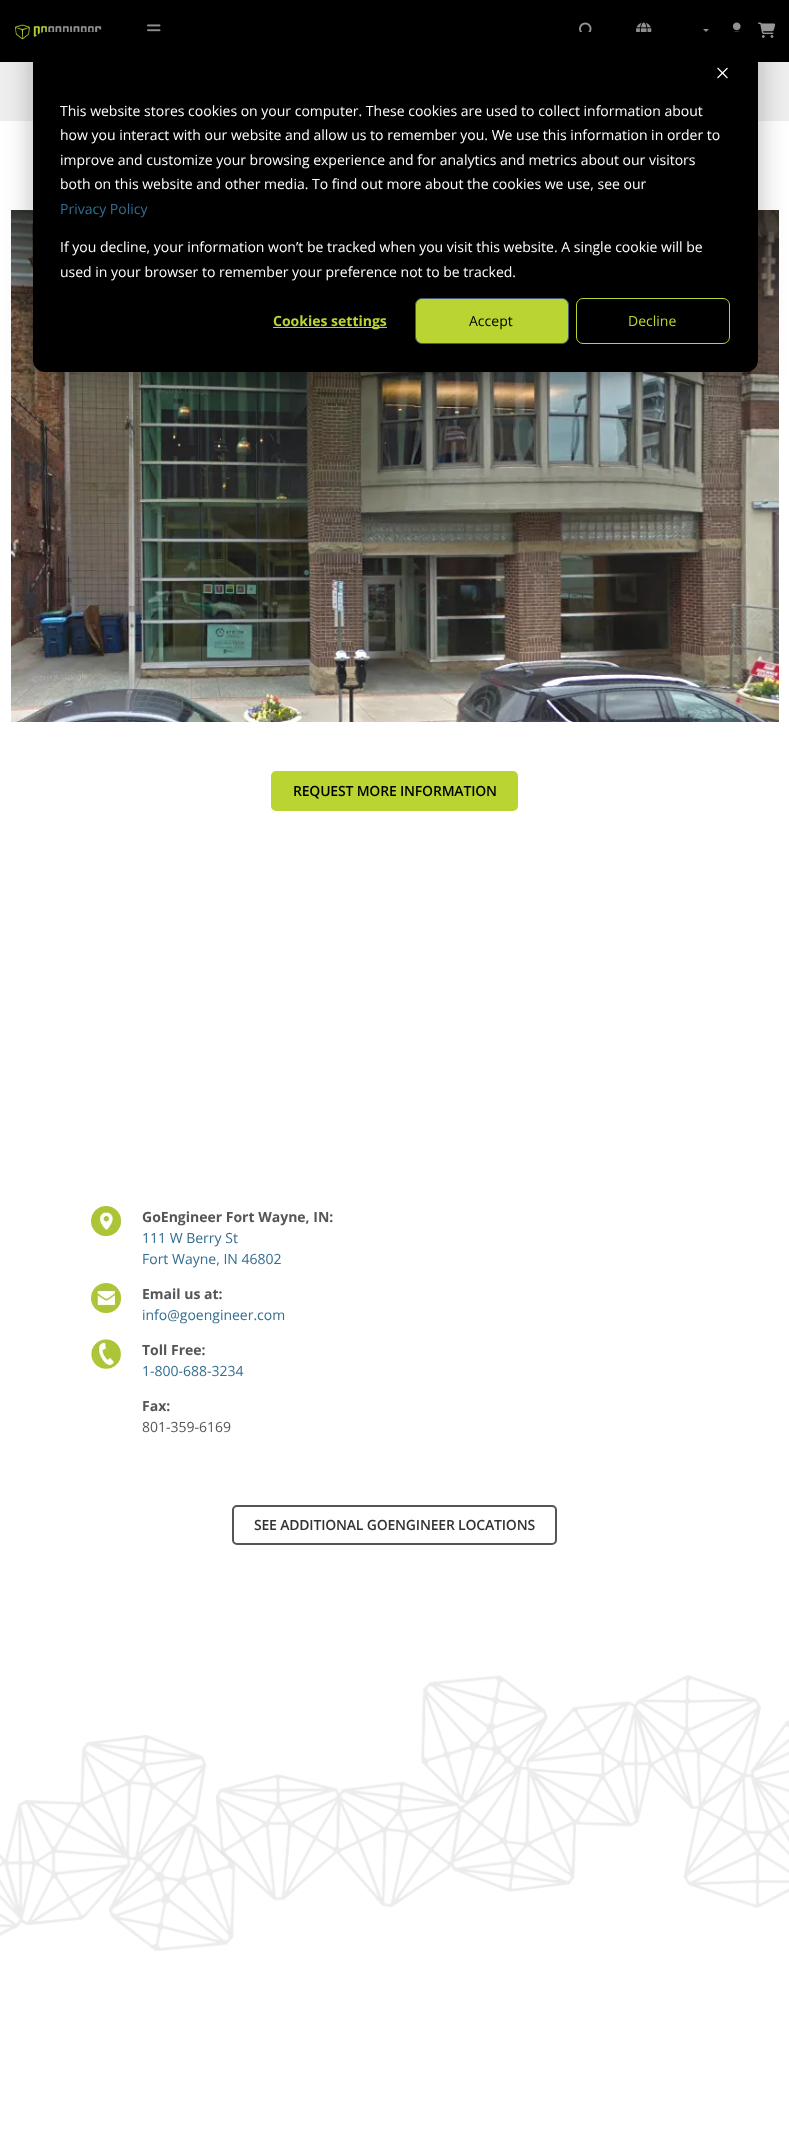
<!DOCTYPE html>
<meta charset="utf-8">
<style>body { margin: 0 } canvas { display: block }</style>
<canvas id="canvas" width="789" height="2145"></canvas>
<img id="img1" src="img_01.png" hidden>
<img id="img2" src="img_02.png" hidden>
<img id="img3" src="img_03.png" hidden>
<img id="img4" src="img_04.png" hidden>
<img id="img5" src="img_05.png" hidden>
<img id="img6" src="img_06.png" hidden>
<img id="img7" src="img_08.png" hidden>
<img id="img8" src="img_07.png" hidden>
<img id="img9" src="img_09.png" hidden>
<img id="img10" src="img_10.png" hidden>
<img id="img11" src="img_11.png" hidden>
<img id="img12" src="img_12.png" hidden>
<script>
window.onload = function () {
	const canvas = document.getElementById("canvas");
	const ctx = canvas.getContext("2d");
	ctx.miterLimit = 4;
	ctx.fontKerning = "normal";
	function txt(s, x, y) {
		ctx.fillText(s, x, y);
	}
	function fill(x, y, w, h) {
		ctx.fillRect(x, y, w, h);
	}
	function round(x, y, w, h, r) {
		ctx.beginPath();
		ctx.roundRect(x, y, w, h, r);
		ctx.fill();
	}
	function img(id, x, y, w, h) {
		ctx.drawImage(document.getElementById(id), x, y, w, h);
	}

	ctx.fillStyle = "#FFFFFF";
	fill(0, 0, 789, 2145);
	ctx.fillStyle = "#000000";
	fill(0, 0, 789, 62);
	img("img1", 15, 24, 87, 16);
	img("img2", 147, 24, 14, 8);
	img("img3", 579, 22, 13, 10);
	img("img4", 636, 22, 16, 10);
	ctx.fillStyle = "#98989A";
	ctx.beginPath();
	ctx.moveTo(703, 29);
	ctx.lineTo(709, 29);
	ctx.lineTo(706, 32);
	ctx.closePath();
	ctx.fill();
	img("img5", 732, 22, 9, 10);
	img("img6", 758, 22, 18, 16);
	ctx.fillStyle = "#EEEEEE";
	fill(0, 62, 789, 59);
	img("img7", 11, 210, 768, 512);
	ctx.fillStyle = "rgba(0, 0, 0, 0.28)";
	ctx.filter = "blur(14px)";
	ctx.beginPath();
	ctx.roundRect(33, 40, 725, 340, 12);
	ctx.fill();
	ctx.filter = "none";
	ctx.fillStyle = "#000000";
	round(33, 32, 725, 340, 12);
	img("img8", 717, 67, 11, 12);
	ctx.fillStyle = "#BAD532";
	fill(273, 327, 114, 1);
	ctx.beginPath();
	ctx.roundRect(415.5, 298.5, 153, 45, 6.5);
	ctx.fill();
	ctx.strokeStyle = "#425B76";
	ctx.stroke();
	ctx.beginPath();
	ctx.roundRect(576.5, 298.5, 153, 45, 6.5);
	ctx.strokeStyle = "#BAD532";
	ctx.stroke();
	ctx.beginPath();
	ctx.roundRect(272, 772, 245, 38, 4);
	ctx.fill();
	ctx.lineWidth = 2;
	ctx.stroke();
	img("img9", 91, 1206, 30, 30);
	img("img10", 91, 1283, 30, 30);
	img("img11", 91, 1339, 30, 30);
	ctx.beginPath();
	ctx.roundRect(233, 1506, 323, 38, 4);
	ctx.strokeStyle = "#555555";
	ctx.stroke();
	img("img12", 0, 1675, 789, 276);
	ctx.font = "14px Open Sans";
	ctx.fillStyle = "#FFFFFF";
	txt("This website stores cookies on your computer. These cookies are used to collect information about", 60, 116);
	txt("how you interact with our website and allow us to remember you. We use this information in order to", 60, 140);
	txt("improve and customize your browsing experience and for analytics and metrics about our visitors", 60, 165);
	txt("both on this website and other media. To find out more about the cookies we use, see our", 60, 189);
	ctx.fillStyle = "#336D91";
	txt("Privacy Policy", 60, 214);
	ctx.fillStyle = "#FFFFFF";
	txt("If you decline, your information won’t be tracked when you visit this website. A single cookie will be", 60, 252);
	txt("used in your browser to remember your preference not to be tracked.", 60, 277);
	ctx.font = "bold 14px Open Sans";
	ctx.fillStyle = "#BAD532";
	txt("Cookies settings", 273, 326);
	ctx.font = "14px Open Sans";
	ctx.fillStyle = "#000000";
	txt("Accept", 469, 326);
	ctx.fillStyle = "#BAD532";
	txt("Decline", 628, 326);
	ctx.letterSpacing = "-0.2px";
	ctx.font = "600 14px Open Sans";
	ctx.fillStyle = "#000000";
	txt("REQUEST MORE INFORMATION", 293, 796);
	ctx.letterSpacing = "0px";
	ctx.font = "bold 14px Open Sans";
	ctx.fillStyle = "#555555";
	txt("GoEngineer Fort Wayne, IN:", 142, 1222);
	ctx.font = "14px Open Sans";
	ctx.fillStyle = "#336D91";
	txt("111 W Berry St", 142, 1243);
	txt("Fort Wayne, IN 46802", 142, 1264);
	ctx.font = "bold 14px Open Sans";
	ctx.fillStyle = "#555555";
	txt("Email us at:", 142, 1299);
	ctx.font = "14px Open Sans";
	ctx.fillStyle = "#336D91";
	txt("info@goengineer.com", 142, 1320);
	ctx.font = "bold 14px Open Sans";
	ctx.fillStyle = "#555555";
	txt("Toll Free:", 142, 1355);
	ctx.font = "14px Open Sans";
	ctx.fillStyle = "#336D91";
	txt("1-800-688-3234", 142, 1376);
	ctx.font = "bold 14px Open Sans";
	ctx.fillStyle = "#555555";
	txt("Fax:", 142, 1411);
	ctx.font = "14px Open Sans";
	txt("801-359-6169", 142, 1432);
	ctx.letterSpacing = "-0.2px";
	ctx.font = "600 14px Open Sans";
	ctx.fillStyle = "#333333";
	txt("SEE ADDITIONAL GOENGINEER LOCATIONS", 254, 1530);
};
</script>
